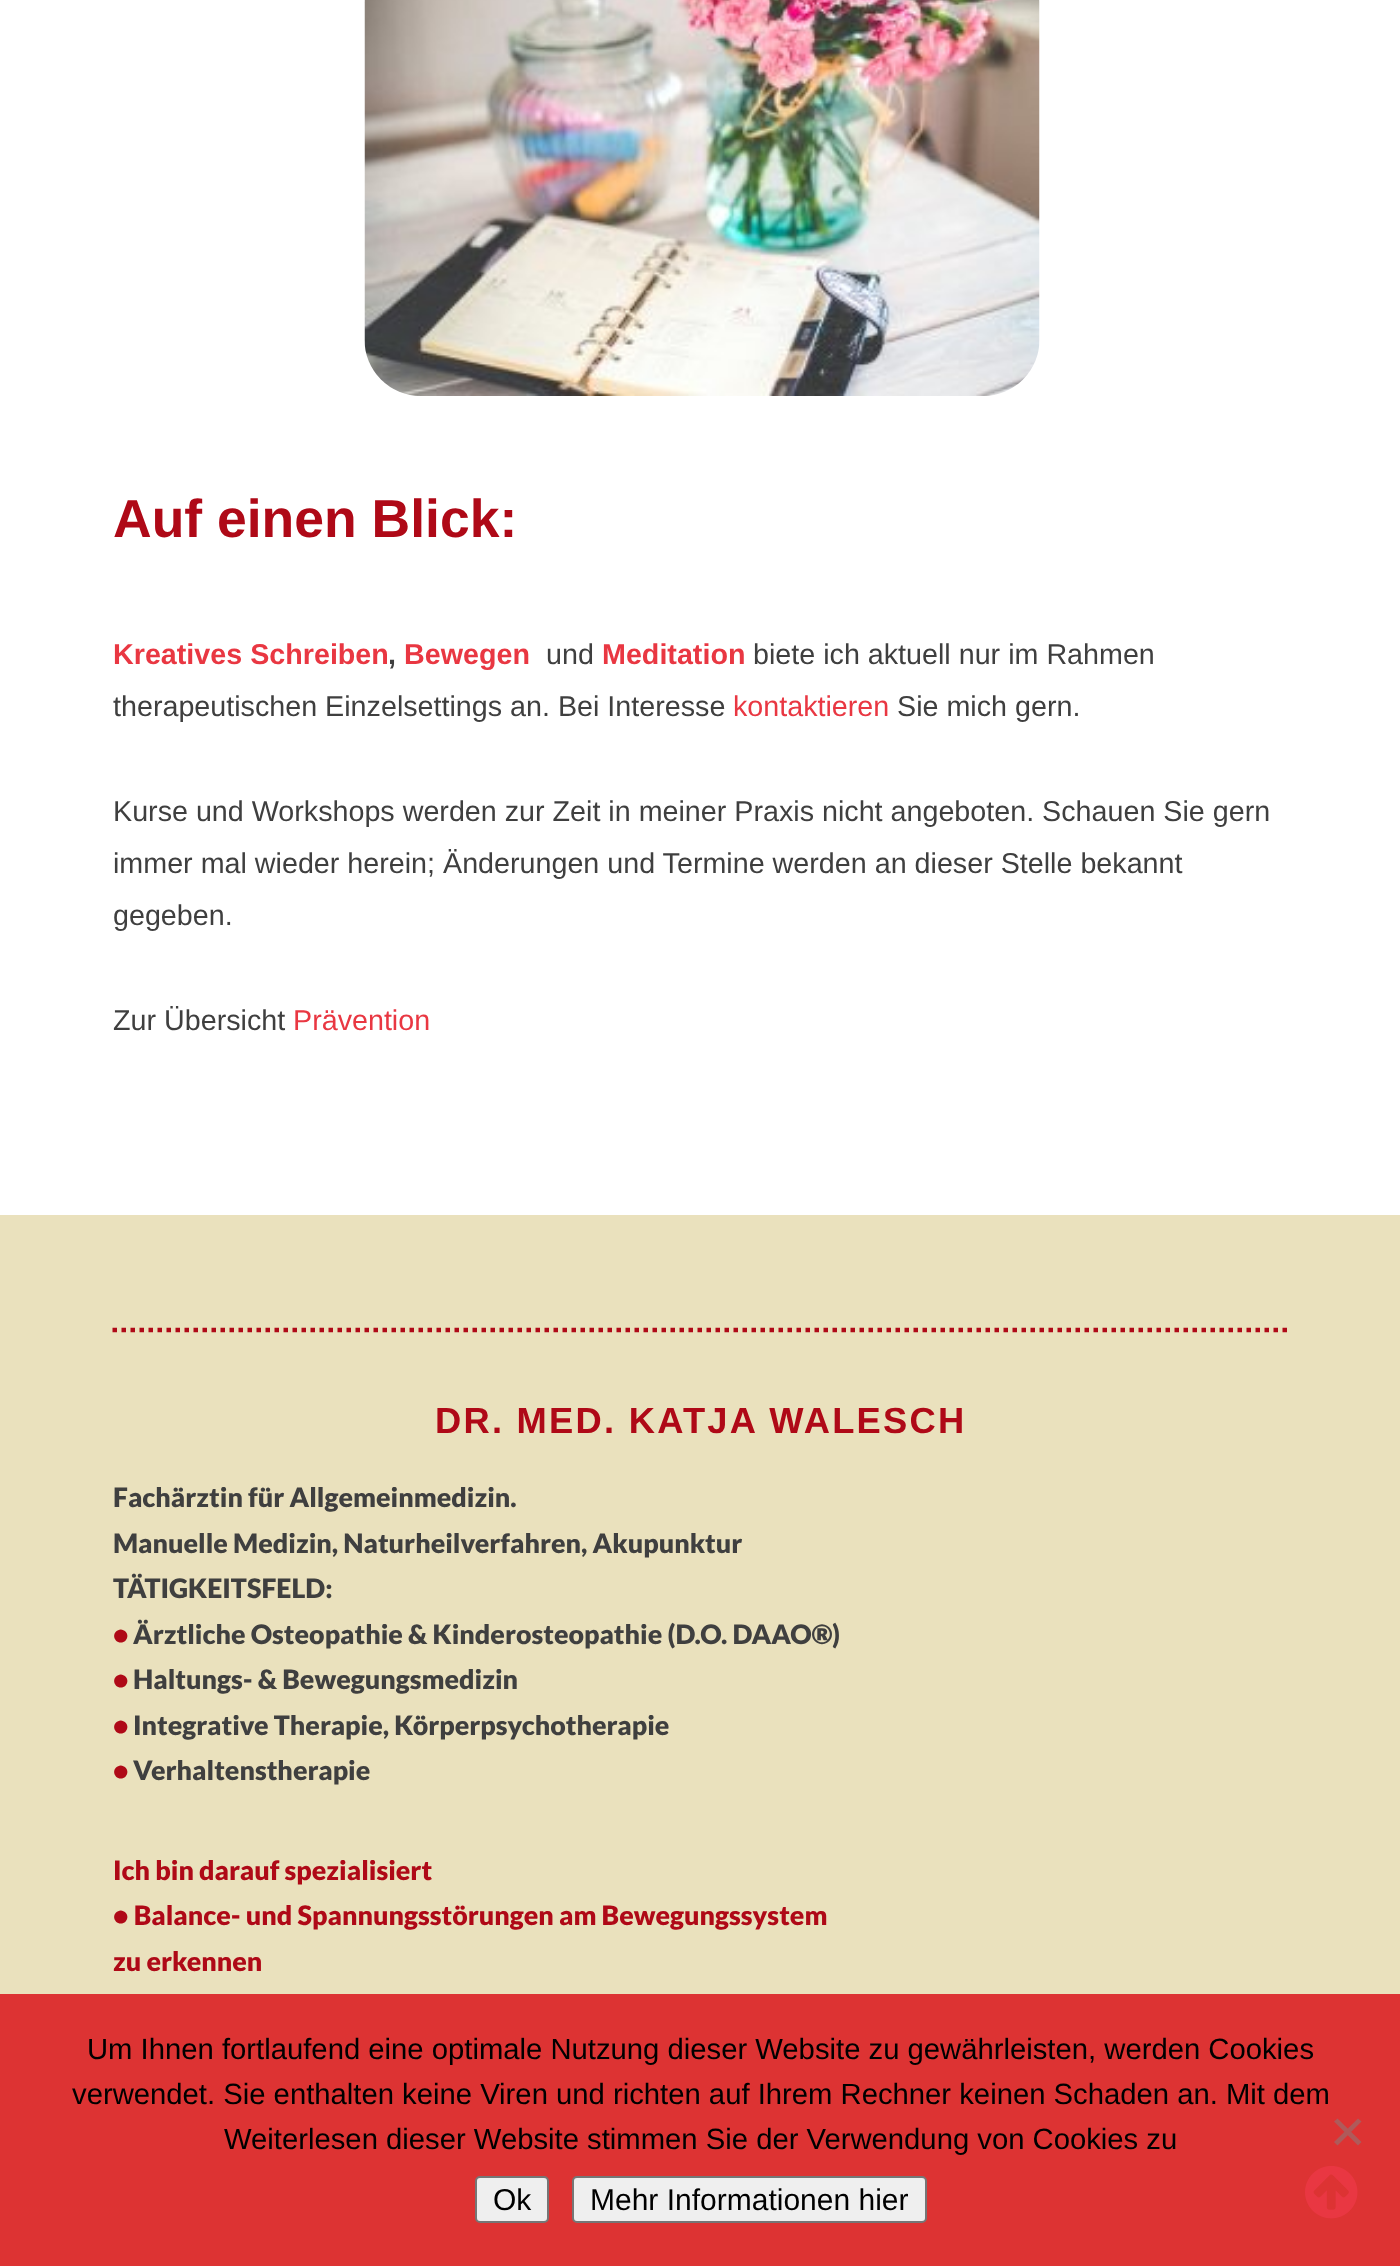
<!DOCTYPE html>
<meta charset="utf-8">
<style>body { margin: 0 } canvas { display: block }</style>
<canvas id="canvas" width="1400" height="2266"></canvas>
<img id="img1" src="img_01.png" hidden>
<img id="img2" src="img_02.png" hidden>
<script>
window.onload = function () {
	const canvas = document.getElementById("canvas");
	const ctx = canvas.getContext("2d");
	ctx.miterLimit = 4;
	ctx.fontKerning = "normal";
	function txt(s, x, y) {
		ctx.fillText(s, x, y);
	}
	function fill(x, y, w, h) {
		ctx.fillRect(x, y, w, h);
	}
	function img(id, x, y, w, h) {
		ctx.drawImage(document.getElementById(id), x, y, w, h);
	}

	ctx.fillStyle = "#FFFFFF";
	fill(0, 0, 1400, 2266);
	img("img1", 364, 0, 676, 396);
	ctx.fillStyle = "#EAE1BD";
	fill(0, 1215, 1400, 779);
	ctx.beginPath();
	ctx.moveTo(112.5, 1330);
	ctx.lineTo(1289, 1330);
	ctx.strokeStyle = "#AF0917";
	ctx.lineWidth = 4.5;
	ctx.setLineDash([4.5, 4.5]);
	ctx.stroke();
	ctx.fillStyle = "#DD3333";
	fill(0, 1994, 1400, 272);
	ctx.fillStyle = "#AF5A5A";
	ctx.beginPath();
	ctx.moveTo(1358, 2118.5);
	ctx.lineTo(1361.5, 2121.5);
	ctx.lineTo(1337.5, 2145.5);
	ctx.lineTo(1334, 2142);
	ctx.closePath();
	ctx.fill();
	ctx.beginPath();
	ctx.moveTo(1334, 2121.5);
	ctx.lineTo(1337.5, 2118.5);
	ctx.lineTo(1361.5, 2142);
	ctx.lineTo(1358, 2145.5);
	ctx.closePath();
	ctx.fill();
	ctx.fillStyle = "#EFEFEF";
	ctx.beginPath();
	ctx.roundRect(476, 2177, 72, 45, 4);
	ctx.fill();
	ctx.strokeStyle = "#767676";
	ctx.lineWidth = 2;
	ctx.setLineDash([]);
	ctx.stroke();
	ctx.beginPath();
	ctx.roundRect(573, 2177, 353, 45, 4);
	ctx.fill();
	ctx.stroke();
	img("img2", 1305, 2166, 53, 53);
	ctx.font = "bold 53.5px Liberation Sans";
	ctx.fillStyle = "#AF0917";
	txt("Auf einen Blick:", 113, 537);
	ctx.font = "bold 28.7px Liberation Sans";
	ctx.fillStyle = "#E93742";
	txt("Kreatives Schreiben", 113, 664);
	ctx.fillStyle = "#3F3F3F";
	txt(",", 388, 664);
	ctx.fillStyle = "#E93742";
	txt("Bewegen", 404, 664);
	ctx.font = "28.7px Liberation Sans";
	ctx.fillStyle = "#3F3F3F";
	txt("und", 546, 664);
	ctx.font = "bold 28.7px Liberation Sans";
	ctx.fillStyle = "#E93742";
	txt("Meditation", 602, 664);
	ctx.font = "28.7px Liberation Sans";
	ctx.fillStyle = "#3F3F3F";
	txt("biete ich aktuell nur im Rahmen", 753, 664);
	txt("therapeutischen Einzelsettings an. Bei Interesse", 113, 716);
	ctx.fillStyle = "#E93742";
	txt("kontaktieren", 733, 716);
	ctx.fillStyle = "#3F3F3F";
	txt("Sie mich gern.", 897, 716);
	txt("Kurse und Workshops werden zur Zeit in meiner Praxis nicht angeboten. Schauen Sie gern", 113, 821);
	txt("immer mal wieder herein; Änderungen und Termine werden an dieser Stelle bekannt", 113, 873);
	txt("gegeben.", 113, 925);
	txt("Zur Übersicht", 113, 1030);
	ctx.fillStyle = "#E93742";
	txt("Prävention", 293, 1030);
	ctx.letterSpacing = "2.25px";
	ctx.font = "bold 36.3px Liberation Sans";
	ctx.fillStyle = "#AF0917";
	txt("DR. MED. KATJA WALESCH", 435, 1433);
	ctx.letterSpacing = "0px";
	ctx.font = "900 26.75px Lato";
	ctx.fillStyle = "#3F3F3F";
	txt("Fachärztin für Allgemeinmedizin.", 113, 1507);
	txt("Manuelle Medizin, Naturheilverfahren, Akupunktur", 113, 1553);
	txt("TÄTIGKEITSFELD:", 113, 1598);
	ctx.fillStyle = "#AF0917";
	txt("•", 113, 1644);
	ctx.fillStyle = "#3F3F3F";
	txt("Ärztliche Osteopathie & Kinderosteopathie (D.O. DAAO®)", 133, 1644);
	ctx.fillStyle = "#AF0917";
	txt("•", 113, 1689);
	ctx.fillStyle = "#3F3F3F";
	txt("Haltungs- & Bewegungsmedizin", 133, 1689);
	ctx.fillStyle = "#AF0917";
	txt("•", 113, 1735);
	ctx.fillStyle = "#3F3F3F";
	txt("Integrative Therapie, Körperpsychotherapie", 133, 1735);
	ctx.fillStyle = "#AF0917";
	txt("•", 113, 1780);
	ctx.fillStyle = "#3F3F3F";
	txt("Verhaltenstherapie", 133, 1780);
	ctx.fillStyle = "#AF0917";
	txt("Ich bin darauf spezialisiert", 113, 1880);
	txt("• Balance- und Spannungsstörungen am Bewegungssystem", 113, 1925);
	txt("zu erkennen", 113, 1971);
	ctx.font = "29.25px Liberation Sans";
	ctx.fillStyle = "#000000";
	txt("Um Ihnen fortlaufend eine optimale Nutzung dieser Website zu gewährleisten, werden Cookies", 87, 2059);
	txt("verwendet. Sie enthalten keine Viren und richten auf Ihrem Rechner keinen Schaden an. Mit dem", 72, 2104);
	txt("Weiterlesen dieser Website stimmen Sie der Verwendung von Cookies zu", 224, 2149);
	ctx.font = "30px Liberation Sans";
	txt("Ok", 493, 2210);
	txt("Mehr Informationen hier", 590, 2210);
};
</script>
